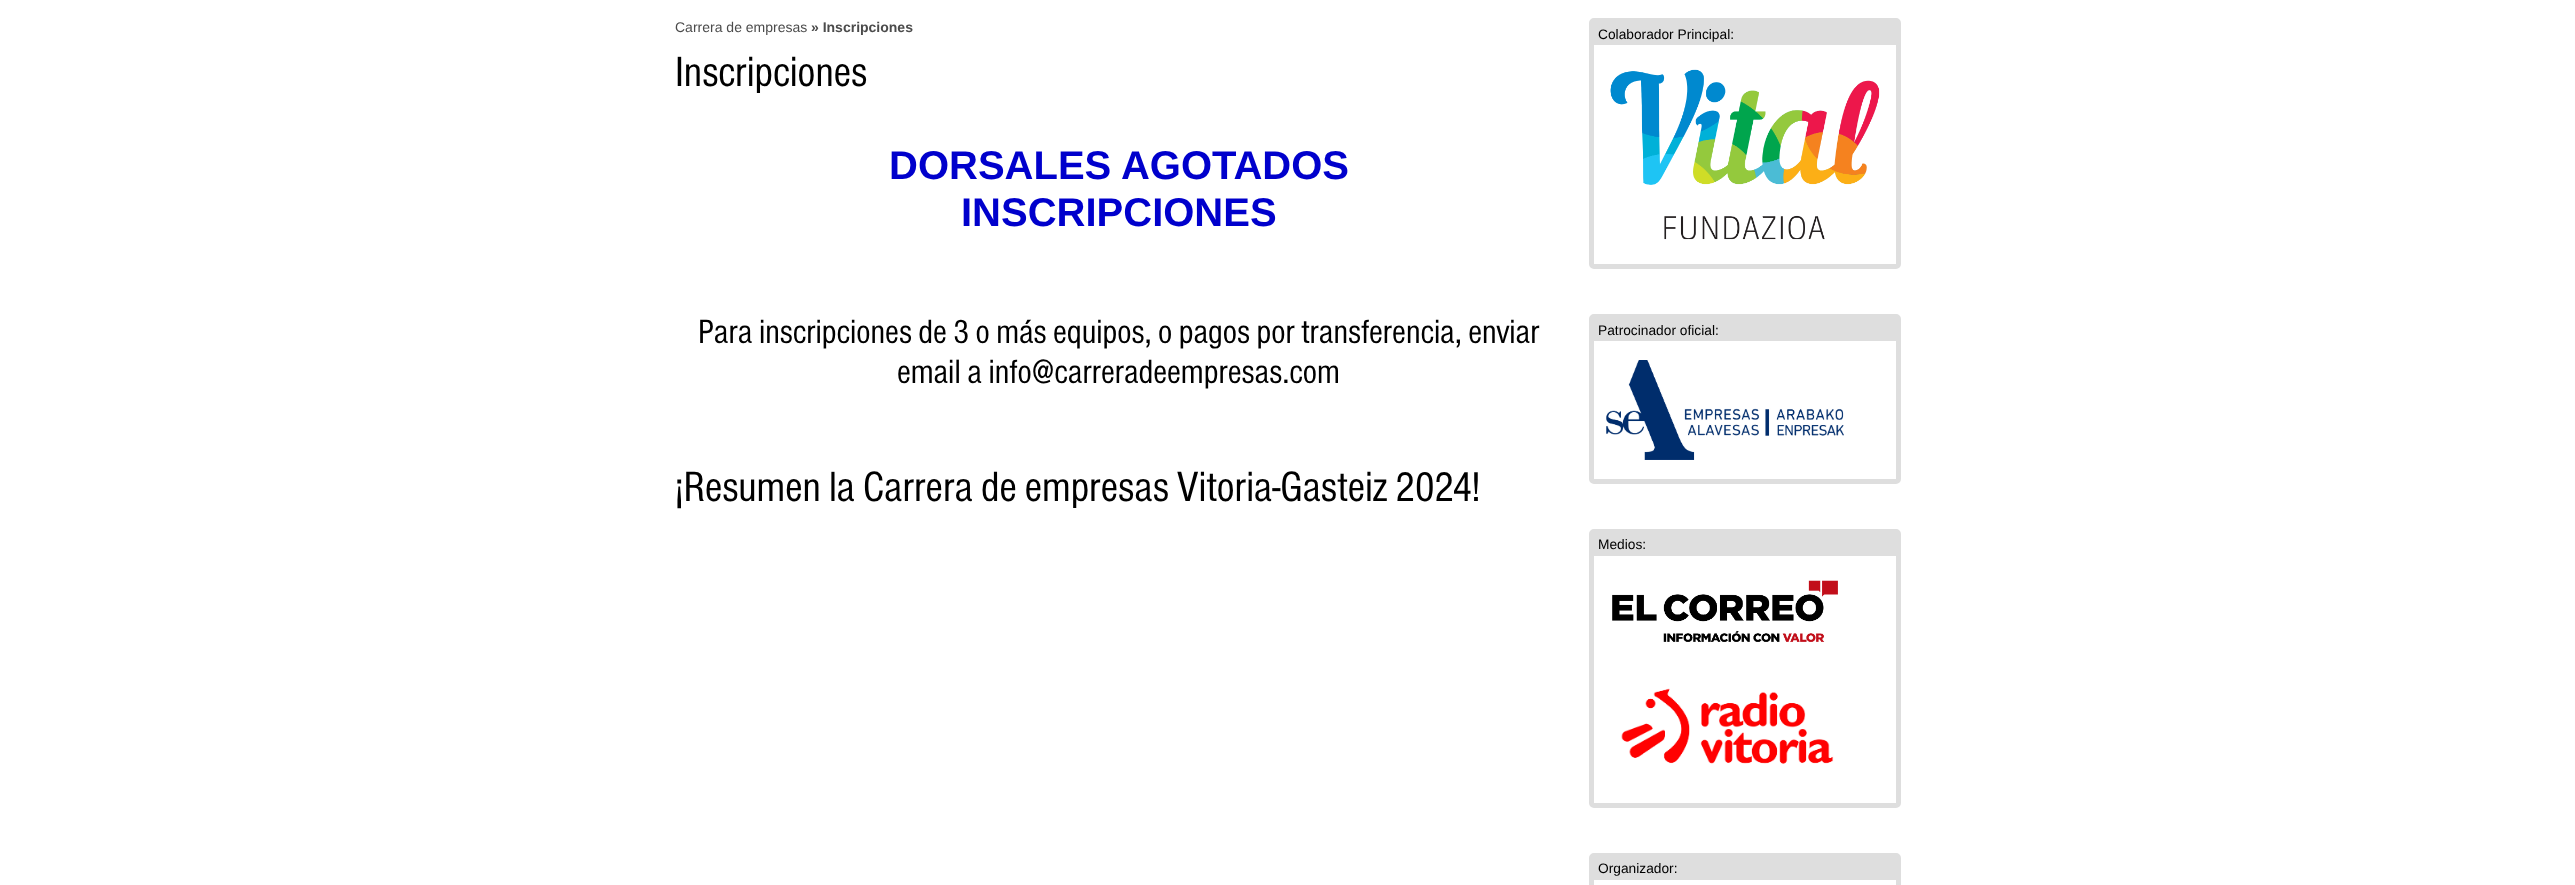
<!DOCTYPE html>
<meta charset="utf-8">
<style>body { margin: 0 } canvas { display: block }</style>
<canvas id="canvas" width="2575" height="885"></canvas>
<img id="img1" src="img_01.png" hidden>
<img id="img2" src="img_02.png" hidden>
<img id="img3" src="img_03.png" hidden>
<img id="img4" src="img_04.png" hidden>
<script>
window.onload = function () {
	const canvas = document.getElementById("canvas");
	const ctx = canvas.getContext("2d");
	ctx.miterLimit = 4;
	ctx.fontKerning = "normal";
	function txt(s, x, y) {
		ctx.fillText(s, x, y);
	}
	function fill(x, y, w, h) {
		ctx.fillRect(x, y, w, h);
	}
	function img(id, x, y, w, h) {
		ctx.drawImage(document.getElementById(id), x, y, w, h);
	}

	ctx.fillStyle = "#FFFFFF";
	fill(0, 0, 2575, 885);
	ctx.beginPath();
	ctx.roundRect(1591.5, 20.5, 307, 246, 2.5);
	ctx.strokeStyle = "#DEDEDE";
	ctx.lineWidth = 5;
	ctx.stroke();
	ctx.fillStyle = "#DEDEDE";
	fill(1594, 23, 302, 22);
	img("img1", 1610, 69, 270, 171);
	ctx.beginPath();
	ctx.roundRect(1591.5, 316.5, 307, 165, 2.5);
	ctx.stroke();
	fill(1594, 319, 302, 22);
	img("img2", 1606, 360, 238, 100);
	ctx.beginPath();
	ctx.roundRect(1591.5, 531.5, 307, 274, 2.5);
	ctx.stroke();
	fill(1594, 534, 302, 22);
	img("img3", 1612, 580, 226, 62);
	img("img4", 1621, 688, 213, 76);
	ctx.beginPath();
	ctx.roundRect(1591.5, 855.5, 307, 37, 2.5);
	ctx.stroke();
	fill(1594, 858, 302, 22);
	ctx.font = "14px Liberation Sans";
	ctx.fillStyle = "#4B4B4B";
	txt("Carrera de empresas", 675, 32);
	ctx.font = "bold 14px Liberation Sans";
	txt("» Inscripciones", 811, 32);
	ctx.font = "43.75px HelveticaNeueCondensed";
	ctx.fillStyle = "#000000";
	txt("Inscripciones", 675, 86);
	ctx.font = "bold 40px Liberation Sans";
	ctx.fillStyle = "#0000CC";
	txt("DORSALES AGOTADOS", 889, 179);
	txt("INSCRIPCIONES", 961, 226);
	ctx.font = "35px HelveticaNeueCondensed";
	ctx.fillStyle = "#000000";
	txt("Para inscripciones de 3 o más equipos, o pagos por transferencia, enviar", 698, 343);
	txt("email a info@carreradeempresas.com", 897, 383);
	ctx.font = "43.75px HelveticaNeueCondensed";
	txt("¡Resumen la Carrera de empresas Vitoria-Gasteiz 2024!", 675, 501);
	ctx.font = "13.75px Liberation Sans";
	txt("Colaborador Principal:", 1598, 39);
	txt("Patrocinador oficial:", 1598, 335);
	txt("Medios:", 1598, 549);
	txt("Organizador:", 1598, 873);
};
</script>
